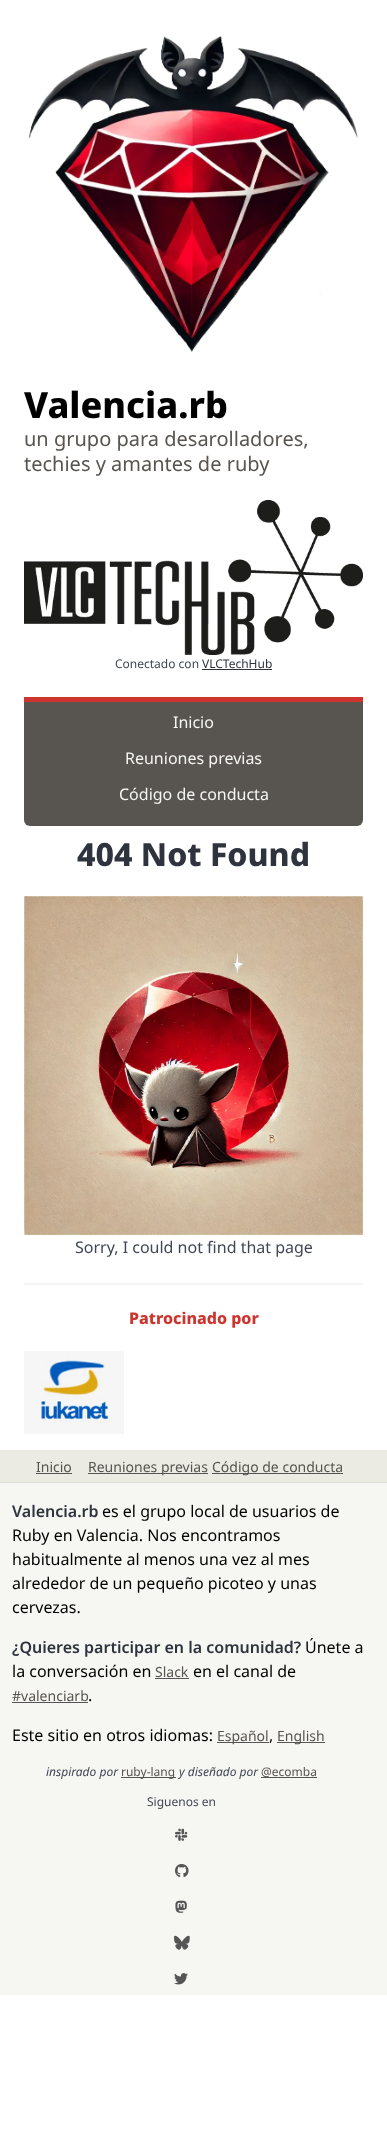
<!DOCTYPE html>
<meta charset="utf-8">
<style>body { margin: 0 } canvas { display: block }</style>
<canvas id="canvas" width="387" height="2141"></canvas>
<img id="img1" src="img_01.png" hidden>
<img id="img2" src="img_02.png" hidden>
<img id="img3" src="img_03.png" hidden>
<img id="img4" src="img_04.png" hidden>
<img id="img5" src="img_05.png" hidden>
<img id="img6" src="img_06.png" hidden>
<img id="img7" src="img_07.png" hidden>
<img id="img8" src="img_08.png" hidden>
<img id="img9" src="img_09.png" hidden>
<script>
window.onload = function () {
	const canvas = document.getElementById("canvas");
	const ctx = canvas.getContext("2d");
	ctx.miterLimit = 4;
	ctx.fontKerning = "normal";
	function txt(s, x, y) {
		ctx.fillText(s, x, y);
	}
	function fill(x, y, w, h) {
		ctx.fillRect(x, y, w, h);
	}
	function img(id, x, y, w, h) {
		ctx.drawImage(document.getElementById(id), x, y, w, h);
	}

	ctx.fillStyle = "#FFFFFF";
	fill(0, 0, 387, 2141);
	img("img1", 28, 36, 330, 316);
	img("img2", 24, 500, 339, 155);
	ctx.fillStyle = "#2E333D";
	fill(202, 669, 70, 1);
	ctx.fillStyle = "#585450";
	ctx.beginPath();
	ctx.roundRect(24, 697, 339, 129, [0, 0, 6, 6]);
	ctx.fill();
	ctx.fillStyle = "#CC342D";
	fill(24, 697, 339, 5);
	img("img3", 24, 896, 339, 339);
	ctx.fillStyle = "#F3F4F6";
	fill(24, 1283, 339, 2);
	img("img4", 24, 1351, 100, 83);
	ctx.fillStyle = "#F6F6F3";
	fill(0, 1483, 387, 512);
	ctx.fillStyle = "#EBEBE4";
	fill(0, 1450, 387, 32);
	ctx.fillStyle = "#DDDDDD";
	fill(0, 1482, 387, 1);
	ctx.fillStyle = "#555555";
	fill(36, 1473, 36, 1);
	fill(88, 1473, 120, 1);
	fill(212, 1473, 131, 1);
	fill(155, 1678, 34, 1);
	fill(12, 1702, 76, 1);
	fill(217, 1742, 52, 1);
	fill(277, 1742, 48, 1);
	fill(121, 1777, 55, 1);
	fill(261, 1777, 56, 1);
	img("img5", 175, 1828, 13, 13);
	img("img6", 175, 1864, 14, 14);
	img("img7", 175, 1900, 12, 13);
	img("img8", 174, 1935, 16, 15);
	img("img9", 174, 1973, 14, 12);
	ctx.font = "800 36px Noto Sans";
	ctx.fillStyle = "#000000";
	txt("Valencia.rb", 24, 418);
	ctx.font = "20px Noto Sans";
	ctx.fillStyle = "#585450";
	txt("un grupo para desarolladores,", 24, 446);
	txt("techies y amantes de ruby", 24, 471);
	ctx.font = "12px Noto Sans";
	ctx.fillStyle = "#404654";
	txt("Conectado con", 115, 668);
	ctx.fillStyle = "#2E333D";
	txt("VLCTechHub", 202, 668);
	ctx.font = "16px Noto Sans";
	ctx.fillStyle = "#F6F6F3";
	txt("Inicio", 173, 728);
	txt("Reuniones previas", 125, 764);
	txt("Código de conducta", 119, 800);
	ctx.font = "800 32px Noto Sans";
	ctx.fillStyle = "#2E333D";
	txt("404 Not Found", 77, 866);
	ctx.font = "16px Noto Sans";
	ctx.fillStyle = "#404654";
	txt("Sorry, I could not find that page", 75, 1253);
	ctx.font = "800 16px Noto Sans";
	ctx.fillStyle = "#CC342D";
	txt("Patrocinado por", 129, 1324);
	ctx.font = "14px Noto Sans";
	ctx.fillStyle = "#585450";
	txt("Inicio", 36, 1472);
	txt("Reuniones previas", 88, 1472);
	txt("Código de conducta", 212, 1472);
	ctx.font = "600 16px Noto Sans";
	ctx.fillStyle = "#2E333D";
	txt("Valencia.rb", 12, 1517);
	ctx.font = "16px Noto Sans";
	ctx.fillStyle = "#000000";
	txt("es el grupo local de usuarios de", 102, 1517);
	txt("Ruby en Valencia. Nos encontramos", 12, 1541);
	txt("habitualmente al menos una vez al mes", 12, 1565);
	txt("alrededor de un pequeño picoteo y unas", 12, 1589);
	txt("cervezas.", 12, 1613);
	ctx.font = "600 16px Noto Sans";
	ctx.fillStyle = "#2E333D";
	txt("¿Quieres participar en la comunidad?", 12, 1653);
	ctx.font = "16px Noto Sans";
	ctx.fillStyle = "#000000";
	txt("Únete a", 305, 1653);
	txt("la conversación en", 12, 1677);
	ctx.font = "14px Noto Sans";
	ctx.fillStyle = "#585450";
	txt("Slack", 155, 1677);
	ctx.font = "16px Noto Sans";
	ctx.fillStyle = "#000000";
	txt("en el canal de", 193, 1677);
	ctx.font = "14px Noto Sans";
	ctx.fillStyle = "#585450";
	txt("#valenciarb", 12, 1701);
	ctx.font = "16px Noto Sans";
	ctx.fillStyle = "#000000";
	txt(".", 88, 1701);
	txt("Este sitio en otros idiomas:", 12, 1741);
	ctx.font = "14px Noto Sans";
	ctx.fillStyle = "#585450";
	txt("Español", 217, 1741);
	ctx.font = "16px Noto Sans";
	ctx.fillStyle = "#000000";
	txt(",", 269, 1741);
	ctx.font = "14px Noto Sans";
	ctx.fillStyle = "#585450";
	txt("English", 277, 1741);
	ctx.font = "italic 12px Noto Sans";
	ctx.fillStyle = "#404654";
	txt("inspirado por", 46, 1776);
	ctx.font = "12px Noto Sans";
	ctx.fillStyle = "#585450";
	txt("ruby-lang", 121, 1776);
	ctx.font = "italic 12px Noto Sans";
	ctx.fillStyle = "#404654";
	txt("y diseñado por", 179, 1776);
	ctx.font = "12px Noto Sans";
	ctx.fillStyle = "#585450";
	txt("@ecomba", 261, 1776);
	ctx.fillStyle = "#404654";
	txt("Siguenos en", 147, 1806);
};
</script>
